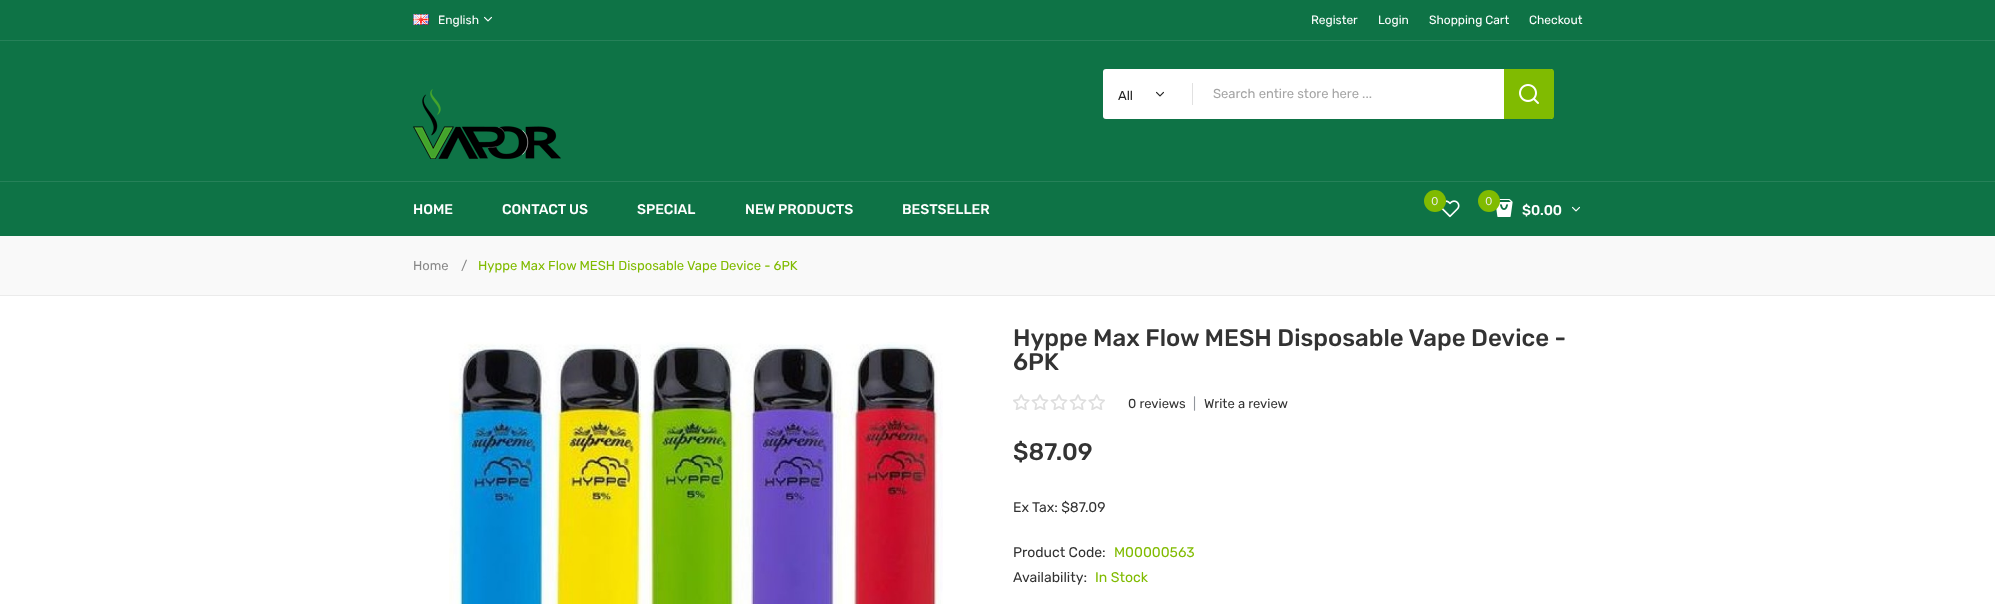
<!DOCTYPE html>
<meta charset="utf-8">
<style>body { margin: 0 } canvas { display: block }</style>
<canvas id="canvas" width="1995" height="604"></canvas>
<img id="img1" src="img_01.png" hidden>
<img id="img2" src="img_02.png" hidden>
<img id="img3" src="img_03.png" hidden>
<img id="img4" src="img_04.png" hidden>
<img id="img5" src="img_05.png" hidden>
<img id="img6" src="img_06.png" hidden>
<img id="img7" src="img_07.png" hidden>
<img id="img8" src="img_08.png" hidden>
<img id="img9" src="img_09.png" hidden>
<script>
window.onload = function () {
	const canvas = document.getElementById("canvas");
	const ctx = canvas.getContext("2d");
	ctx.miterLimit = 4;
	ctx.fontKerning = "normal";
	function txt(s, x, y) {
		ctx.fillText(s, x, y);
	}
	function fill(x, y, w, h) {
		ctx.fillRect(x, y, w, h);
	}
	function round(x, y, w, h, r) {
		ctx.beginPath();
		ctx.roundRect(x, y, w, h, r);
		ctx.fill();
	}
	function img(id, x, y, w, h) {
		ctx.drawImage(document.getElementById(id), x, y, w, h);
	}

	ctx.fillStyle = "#FFFFFF";
	fill(0, 0, 1995, 604);
	ctx.fillStyle = "#0E7346";
	fill(0, 0, 1995, 236);
	ctx.fillStyle = "#268159";
	fill(0, 40, 1995, 1);
	img("img1", 413, 14, 16, 11);
	img("img2", 484, 16, 8, 6);
	img("img3", 413, 89, 148, 70);
	ctx.fillStyle = "#FFFFFF";
	round(1103, 69, 450, 50, 3);
	img("img4", 1156, 91, 8, 6);
	ctx.fillStyle = "#E1E1E1";
	fill(1192, 83, 1, 22);
	ctx.fillStyle = "#FFFFFF";
	ctx.beginPath();
	ctx.roundRect(1193, 69, 360, 50, [0, 3, 3, 0]);
	ctx.fill();
	ctx.fillStyle = "#80BB01";
	ctx.beginPath();
	ctx.roundRect(1504, 69, 50, 50, [0, 3, 3, 0]);
	ctx.fill();
	img("img5", 1519, 84, 20, 20);
	ctx.fillStyle = "#268159";
	fill(0, 181, 1995, 1);
	img("img6", 1441, 200, 19, 18);
	ctx.fillStyle = "#80BB01";
	ctx.beginPath();
	ctx.arc(1435, 201, 11, 0, Math.PI * 2);
	ctx.fill();
	img("img7", 1496, 199, 17, 18);
	ctx.beginPath();
	ctx.arc(1489, 201, 11, 0, Math.PI * 2);
	ctx.fill();
	img("img2", 1572, 206, 8, 6);
	ctx.fillStyle = "#F9F9F9";
	fill(0, 236, 1995, 59);
	ctx.fillStyle = "#EBEBEB";
	fill(0, 295, 1995, 1);
	img("img8", 449, 342, 494, 262);
	img("img9", 1013, 394, 92, 16);
	ctx.font = "12px Rubik";
	ctx.fillStyle = "#FFFFFF";
	txt("English", 438, 24);
	txt("Register", 1311, 24);
	txt("Login", 1378, 24);
	txt("Shopping Cart", 1429, 24);
	txt("Checkout", 1529, 24);
	ctx.font = "13px Rubik";
	ctx.fillStyle = "#242424";
	txt("All", 1118, 100);
	ctx.fillStyle = "#A5A5A5";
	txt("Search entire store here ...", 1213, 98);
	ctx.font = "500 14px Rubik";
	ctx.fillStyle = "#FFFFFF";
	txt("HOME", 413, 214);
	txt("CONTACT US", 502, 214);
	txt("SPECIAL", 637, 214);
	txt("NEW PRODUCTS", 745, 214);
	txt("BESTSELLER", 902, 214);
	ctx.font = "12px Work Sans";
	ctx.fillStyle = "#EDEFF3";
	txt("0", 1431, 205);
	txt("0", 1485, 205);
	ctx.font = "500 14px Rubik";
	ctx.fillStyle = "#FFFFFF";
	txt("$0.00", 1522, 215);
	ctx.font = "13px Rubik";
	ctx.fillStyle = "#888888";
	txt("Home", 413, 270);
	txt("/", 461, 270);
	ctx.fillStyle = "#80BB01";
	txt("Hyppe Max Flow MESH Disposable Vape Device - 6PK", 478, 270);
	ctx.font = "500 24px Rubik";
	ctx.fillStyle = "#333333";
	txt("Hyppe Max Flow MESH Disposable Vape Device -", 1013, 346);
	txt("6PK", 1013, 370);
	ctx.font = "13px Rubik";
	txt("0 reviews", 1128, 408);
	ctx.fillStyle = "#91959B";
	txt("|", 1193, 408);
	ctx.fillStyle = "#333333";
	txt("Write a review", 1204, 408);
	ctx.font = "500 24px Rubik";
	txt("$87.09", 1013, 460);
	ctx.font = "14px Rubik";
	txt("Ex Tax: $87.09", 1013, 512);
	txt("Product Code:", 1013, 557);
	ctx.fillStyle = "#80BB01";
	txt("M00000563", 1114, 557);
	ctx.fillStyle = "#333333";
	txt("Availability:", 1013, 582);
	ctx.fillStyle = "#80BB01";
	txt("In Stock", 1095, 582);
};
</script>
